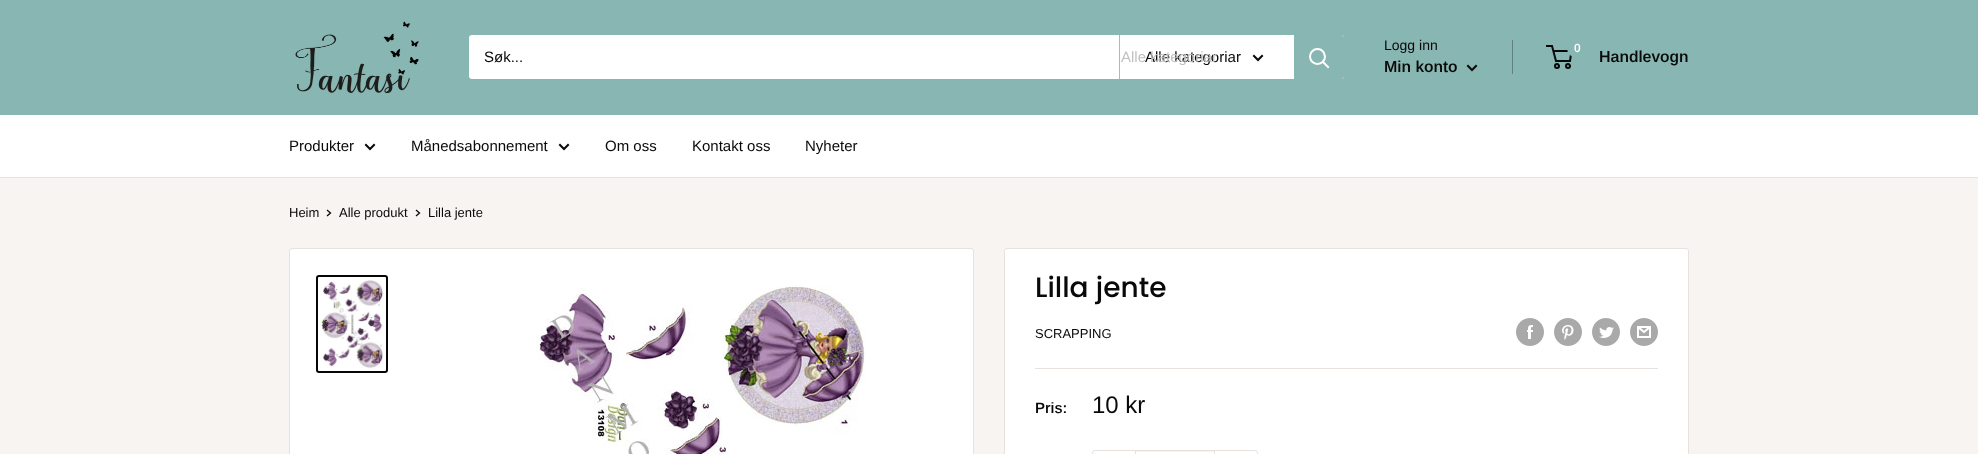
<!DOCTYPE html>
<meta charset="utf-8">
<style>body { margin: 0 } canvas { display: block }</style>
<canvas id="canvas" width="1978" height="454"></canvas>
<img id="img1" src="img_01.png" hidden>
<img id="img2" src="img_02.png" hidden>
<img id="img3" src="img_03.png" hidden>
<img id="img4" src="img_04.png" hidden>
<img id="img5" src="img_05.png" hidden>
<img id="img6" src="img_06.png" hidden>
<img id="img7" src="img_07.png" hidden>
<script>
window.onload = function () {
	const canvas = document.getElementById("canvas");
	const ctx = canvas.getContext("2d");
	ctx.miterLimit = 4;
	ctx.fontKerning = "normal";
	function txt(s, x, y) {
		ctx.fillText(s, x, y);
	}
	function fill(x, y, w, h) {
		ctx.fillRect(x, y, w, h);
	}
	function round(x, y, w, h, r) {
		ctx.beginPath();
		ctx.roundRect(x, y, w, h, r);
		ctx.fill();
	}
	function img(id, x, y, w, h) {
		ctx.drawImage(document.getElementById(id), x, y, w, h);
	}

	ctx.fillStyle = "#F7F4F2";
	fill(0, 0, 1978, 454);
	ctx.fillStyle = "#88B6B2";
	fill(0, 0, 1978, 115);
	img("img1", 295, 21, 124, 73);
	ctx.fillStyle = "#FFFFFF";
	round(469, 35, 875, 44, 3);
	ctx.fillStyle = "#B5B5B5";
	fill(1119, 35, 1, 44);
	ctx.beginPath();
	ctx.moveTo(1262, 56);
	ctx.lineTo(1258, 60);
	ctx.lineTo(1254, 56);
	ctx.strokeStyle = "#090909";
	ctx.lineWidth = 2;
	ctx.lineCap = "square";
	ctx.stroke();
	ctx.fillStyle = "#88B6B2";
	ctx.beginPath();
	ctx.roundRect(1294, 35, 50, 44, [0, 3, 3, 0]);
	ctx.fill();
	ctx.beginPath();
	ctx.moveTo(1328, 67);
	ctx.lineTo(1323, 62);
	ctx.strokeStyle = "#FFFFFF";
	ctx.stroke();
	ctx.beginPath();
	ctx.arc(1317.5, 56.5, 7.5, 0, Math.PI * 2);
	ctx.stroke();
	ctx.fillStyle = "#61827F";
	fill(1512, 40, 1, 34);
	ctx.beginPath();
	ctx.moveTo(1476, 66);
	ctx.lineTo(1472, 70);
	ctx.lineTo(1468, 66);
	ctx.strokeStyle = "#090909";
	ctx.stroke();
	ctx.beginPath();
	ctx.arc(1557, 66, 2, 0, Math.PI * 2);
	ctx.stroke();
	ctx.beginPath();
	ctx.arc(1568, 66, 2, 0, Math.PI * 2);
	ctx.stroke();
	ctx.beginPath();
	ctx.moveTo(1553.5, 51);
	ctx.lineTo(1571.5, 51);
	ctx.lineTo(1570, 61);
	ctx.lineTo(1556, 61);
	ctx.lineTo(1552, 46);
	ctx.lineTo(1546, 46);
	ctx.lineCap = "butt";
	ctx.stroke();
	ctx.fillStyle = "#88B6B2";
	ctx.beginPath();
	ctx.arc(1577, 48, 10, 0, Math.PI * 2);
	ctx.fill();
	ctx.fillStyle = "#FFFFFF";
	fill(0, 115, 1978, 62);
	ctx.fillStyle = "#E7E2DE";
	fill(0, 177, 1978, 1);
	ctx.beginPath();
	ctx.moveTo(374, 145);
	ctx.lineTo(370, 149);
	ctx.lineTo(366, 145);
	ctx.lineCap = "square";
	ctx.stroke();
	ctx.beginPath();
	ctx.moveTo(568, 145);
	ctx.lineTo(564, 149);
	ctx.lineTo(560, 145);
	ctx.stroke();
	ctx.beginPath();
	ctx.moveTo(327.5, 210.5);
	ctx.lineTo(330.5, 213);
	ctx.lineTo(327.5, 215.5);
	ctx.lineWidth = 1.3;
	ctx.stroke();
	ctx.beginPath();
	ctx.moveTo(416.5, 210.5);
	ctx.lineTo(419.5, 213);
	ctx.lineTo(416.5, 215.5);
	ctx.stroke();
	ctx.fillStyle = "#FFFFFF";
	ctx.beginPath();
	ctx.roundRect(289.5, 248.5, 684, 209, 2.5);
	ctx.fill();
	ctx.strokeStyle = "#E7E2DE";
	ctx.lineWidth = 1;
	ctx.stroke();
	ctx.beginPath();
	ctx.roundRect(317, 276, 70, 96, 2);
	ctx.strokeStyle = "#060606";
	ctx.lineWidth = 2;
	ctx.stroke();
	img("img2", 320, 279, 63, 90);
	img("img3", 538, 286, 328, 168);
	ctx.beginPath();
	ctx.roundRect(1004.5, 248.5, 684, 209, 2.5);
	ctx.fill();
	ctx.strokeStyle = "#E7E2DE";
	ctx.lineWidth = 1;
	ctx.stroke();
	img("img4", 1516, 318, 28, 28);
	img("img5", 1554, 318, 28, 28);
	img("img6", 1592, 318, 28, 28);
	img("img7", 1630, 318, 28, 28);
	ctx.fillStyle = "#E7E2DE";
	fill(1035, 368, 623, 1);
	ctx.beginPath();
	ctx.roundRect(1092.5, 450.5, 165, 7, 2.5);
	ctx.stroke();
	ctx.fillStyle = "#F5F3F2";
	fill(1136, 451, 78, 1);
	ctx.fillStyle = "#E7E2DE";
	fill(1214, 451, 1, 3);
	fill(1135, 451, 1, 3);
	ctx.font = "15px Arimo";
	ctx.fillStyle = "#090909";
	txt("Søk...", 484, 62);
	txt("Alle kategoriar", 1145, 62);
	ctx.fillStyle = "#C0C0C0";
	txt("Alle kategoriar", 1121, 62);
	ctx.font = "14px Arimo";
	ctx.fillStyle = "#090909";
	txt("Logg inn", 1384, 50);
	ctx.font = "600 16px Arimo";
	txt("Min konto", 1384, 72);
	ctx.font = "600 12px Arimo";
	ctx.fillStyle = "#FFFFFF";
	txt("0", 1574, 52);
	ctx.font = "600 16px Arimo";
	ctx.fillStyle = "#090909";
	txt("Handlevogn", 1599, 62);
	ctx.font = "15px Arimo";
	txt("Produkter", 289, 151);
	txt("Månedsabonnement", 411, 151);
	txt("Om oss", 605, 151);
	txt("Kontakt oss", 692, 151);
	txt("Nyheter", 805, 151);
	ctx.font = "13px Arimo";
	txt("Heim", 289, 217);
	txt("Alle produkt", 339, 217);
	txt("Lilla jente", 428, 217);
	ctx.font = "500 28px Poppins";
	txt("Lilla jente", 1035, 297);
	ctx.font = "13px Arimo";
	txt("SCRAPPING", 1035, 338);
	ctx.font = "600 15px Arimo";
	txt("Pris:", 1035, 413);
	ctx.font = "24px Arimo";
	txt("10 kr", 1092, 413);
};
</script>
